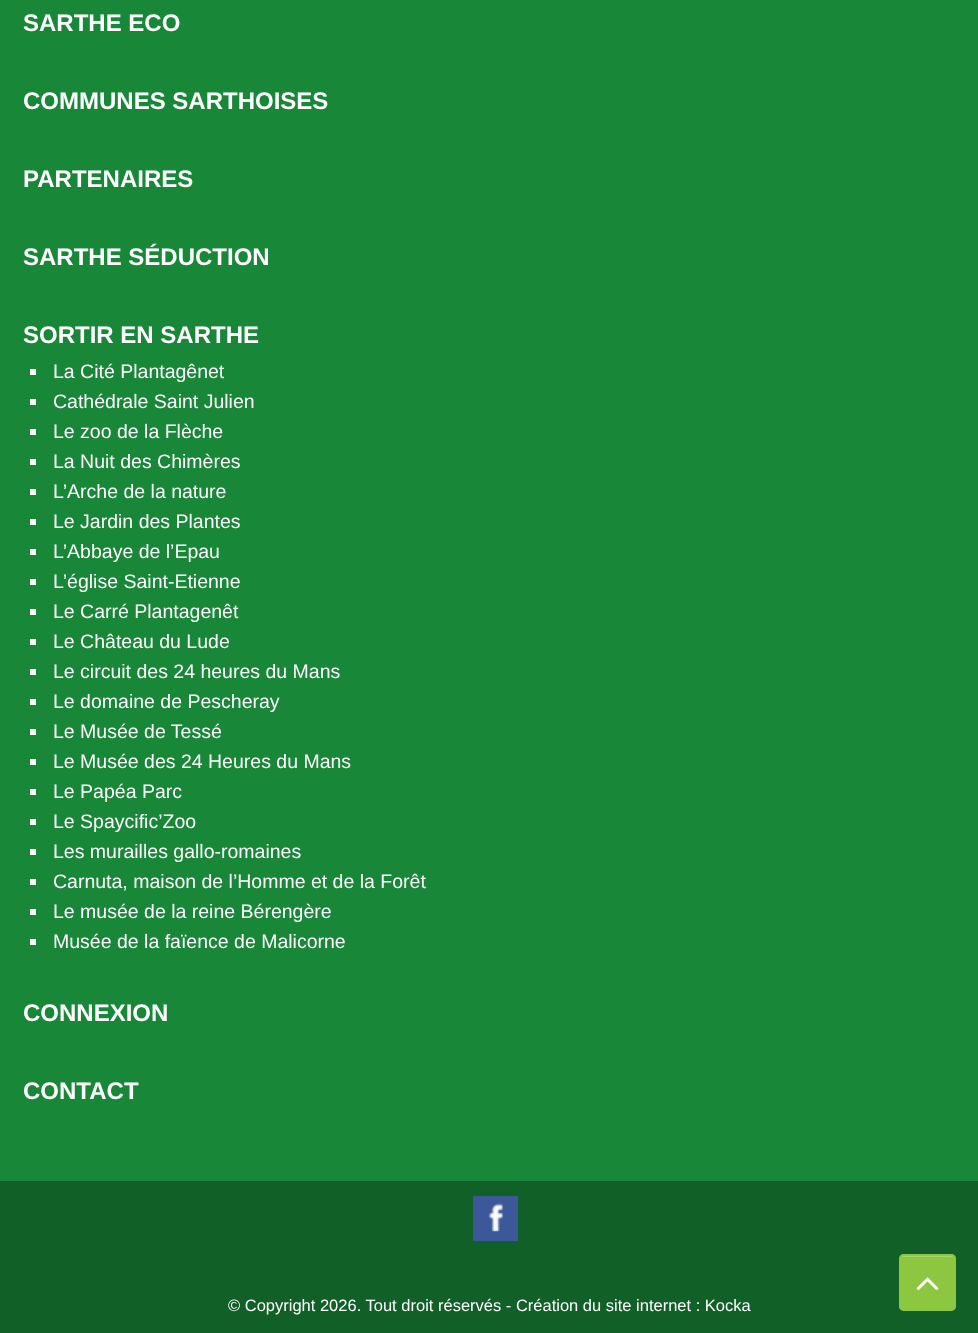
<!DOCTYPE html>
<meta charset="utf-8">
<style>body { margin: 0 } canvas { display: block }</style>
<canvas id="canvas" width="978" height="1333"></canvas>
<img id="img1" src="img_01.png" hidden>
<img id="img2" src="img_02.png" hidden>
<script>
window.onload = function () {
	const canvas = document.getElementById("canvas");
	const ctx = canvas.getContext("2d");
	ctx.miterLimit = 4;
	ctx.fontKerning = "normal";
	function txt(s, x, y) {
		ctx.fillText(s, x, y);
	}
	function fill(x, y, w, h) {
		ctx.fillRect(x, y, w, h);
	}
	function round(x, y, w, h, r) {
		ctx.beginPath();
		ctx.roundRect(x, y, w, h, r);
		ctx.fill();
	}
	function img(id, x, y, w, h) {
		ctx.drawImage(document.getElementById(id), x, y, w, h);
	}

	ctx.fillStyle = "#188738";
	fill(0, 0, 978, 1333);
	ctx.fillStyle = "#FFFFFF";
	fill(30, 369, 6, 6);
	fill(30, 399, 6, 6);
	fill(30, 429, 6, 6);
	fill(30, 459, 6, 6);
	fill(30, 489, 6, 6);
	fill(30, 519, 6, 6);
	fill(30, 549, 6, 6);
	fill(30, 579, 6, 6);
	fill(30, 609, 6, 6);
	fill(30, 639, 6, 6);
	fill(30, 669, 6, 6);
	fill(30, 699, 6, 6);
	fill(30, 729, 6, 6);
	fill(30, 759, 6, 6);
	fill(30, 789, 6, 6);
	fill(30, 819, 6, 6);
	fill(30, 849, 6, 6);
	fill(30, 879, 6, 6);
	fill(30, 909, 6, 6);
	fill(30, 939, 6, 6);
	ctx.fillStyle = "#116028";
	fill(0, 1181, 978, 152);
	ctx.fillStyle = "#3B5998";
	fill(473, 1196, 45, 45);
	img("img1", 488, 1203, 15, 29);
	ctx.fillStyle = "#8DC73F";
	round(899, 1254, 57, 57, 5);
	ctx.fillStyle = "#AAD56F";
	ctx.beginPath();
	ctx.moveTo(903, 1257);
	ctx.lineTo(951, 1257);
	ctx.bezierCurveTo(953, 1257, 954, 1258, 954, 1260);
	ctx.bezierCurveTo(954, 1254, 947, 1256, 943, 1256);
	ctx.lineTo(911, 1256);
	ctx.bezierCurveTo(907, 1256, 900, 1254, 900, 1260);
	ctx.bezierCurveTo(900, 1258, 901, 1257, 903, 1257);
	ctx.closePath();
	ctx.fill();
	ctx.beginPath();
	ctx.roundRect(900, 1255, 55, 55, 4);
	ctx.strokeStyle = "#8DC73F";
	ctx.lineWidth = 2;
	ctx.stroke();
	img("img2", 916, 1277, 23, 14);
	ctx.font = "bold 24px Liberation Sans";
	ctx.fillStyle = "#FFFFFF";
	txt("SARTHE ECO", 23, 31);
	txt("COMMUNES SARTHOISES", 23, 109);
	txt("PARTENAIRES", 23, 187);
	txt("SARTHE SÉDUCTION", 23, 265);
	txt("SORTIR EN SARTHE", 23, 343);
	ctx.font = "19.5px Liberation Sans";
	txt("La Cité Plantagênet", 53, 378);
	txt("Cathédrale Saint Julien", 53, 408);
	txt("Le zoo de la Flèche", 53, 438);
	txt("La Nuit des Chimères", 53, 468);
	txt("L’Arche de la nature", 53, 498);
	txt("Le Jardin des Plantes", 53, 528);
	txt("L’Abbaye de l’Epau", 53, 558);
	txt("L’église Saint-Etienne", 53, 588);
	txt("Le Carré Plantagenêt", 53, 618);
	txt("Le Château du Lude", 53, 648);
	txt("Le circuit des 24 heures du Mans", 53, 678);
	txt("Le domaine de Pescheray", 53, 708);
	txt("Le Musée de Tessé", 53, 738);
	txt("Le Musée des 24 Heures du Mans", 53, 768);
	txt("Le Papéa Parc", 53, 798);
	txt("Le Spaycific’Zoo", 53, 828);
	txt("Les murailles gallo-romaines", 53, 858);
	txt("Carnuta, maison de l’Homme et de la Forêt", 53, 888);
	txt("Le musée de la reine Bérengère", 53, 918);
	txt("Musée de la faïence de Malicorne", 53, 948);
	ctx.font = "bold 24px Liberation Sans";
	txt("CONNEXION", 23, 1021);
	txt("CONTACT", 23, 1099);
	ctx.font = "16.5px Liberation Sans";
	txt("© Copyright 2026. Tout droit réservés - Création du site internet : Kocka", 228, 1311);
};
</script>
